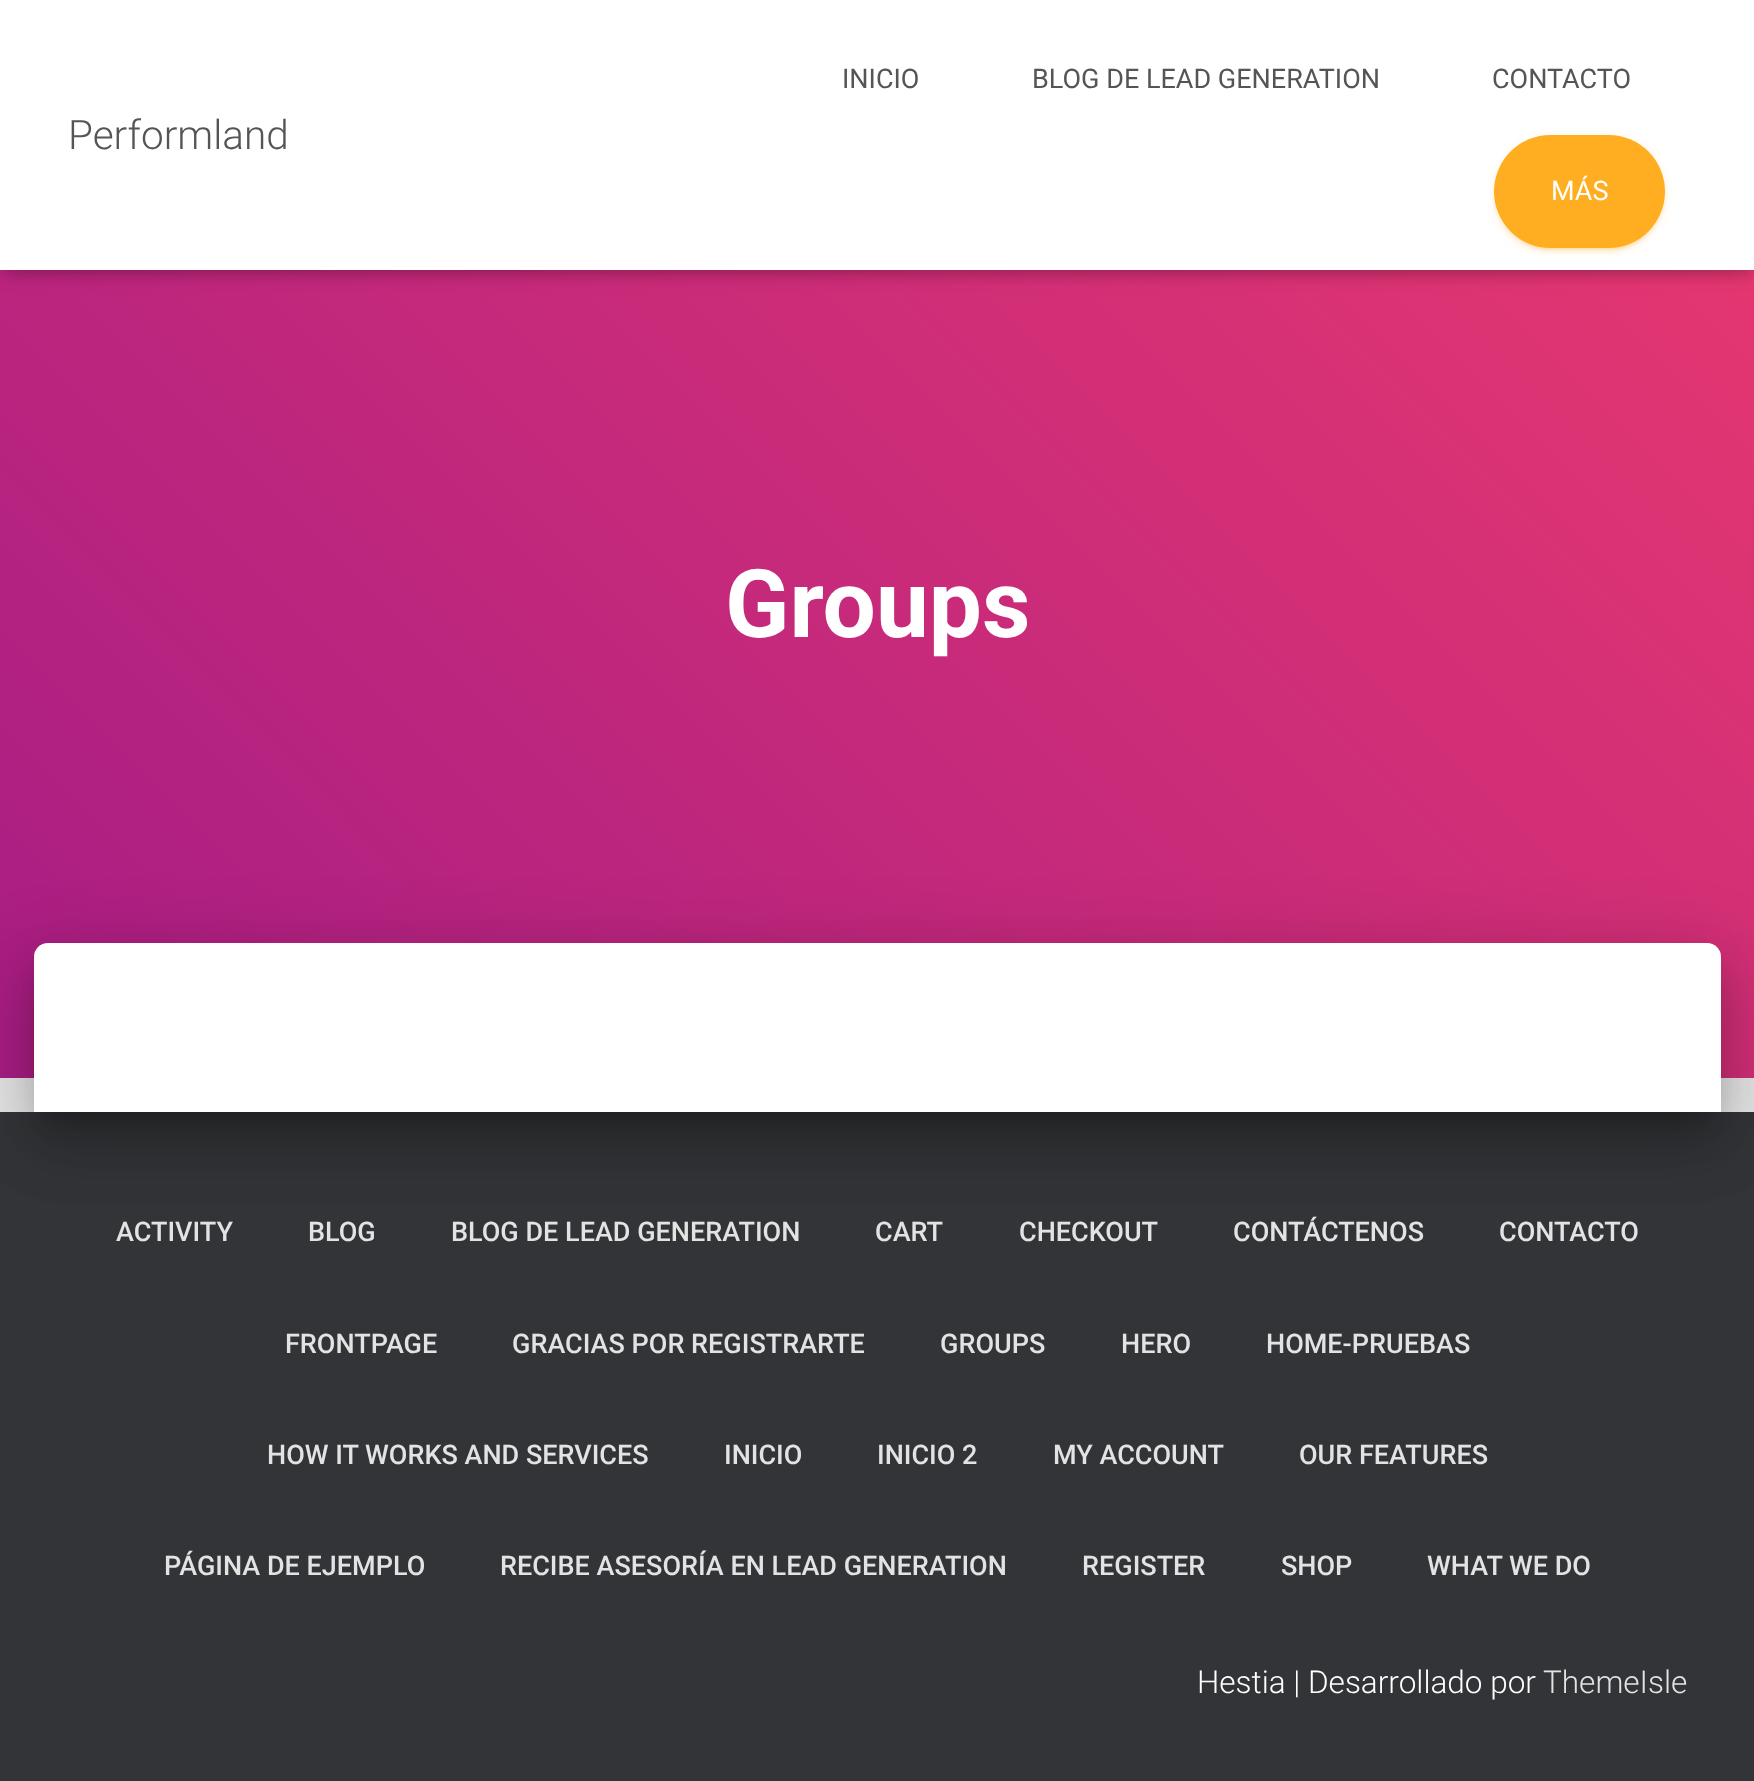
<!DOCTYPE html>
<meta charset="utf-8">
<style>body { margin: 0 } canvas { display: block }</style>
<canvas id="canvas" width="1754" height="1781"></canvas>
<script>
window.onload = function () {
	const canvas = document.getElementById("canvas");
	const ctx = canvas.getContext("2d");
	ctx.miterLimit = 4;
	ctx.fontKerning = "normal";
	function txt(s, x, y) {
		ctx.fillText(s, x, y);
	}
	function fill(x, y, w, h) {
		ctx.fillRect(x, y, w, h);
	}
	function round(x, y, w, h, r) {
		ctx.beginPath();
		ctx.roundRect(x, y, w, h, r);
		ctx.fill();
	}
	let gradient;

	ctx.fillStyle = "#E5E5E5";
	fill(0, 0, 1754, 1781);
	gradient = ctx.createLinearGradient(169, 1247, 1586, -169);
	gradient.addColorStop(0, "#A81D84");
	gradient.addColorStop(1, "#EA396F");
	ctx.fillStyle = gradient;
	fill(0, 270, 1754, 808);
	ctx.fillStyle = "rgba(0, 0, 0, 0.1)";
	ctx.filter = "blur(5.5px)";
	ctx.beginPath();
	ctx.rect(5, 14, 1746, 261);
	ctx.fill();
	ctx.filter = "none";
	ctx.fillStyle = "rgba(0, 0, 0, 0.12)";
	ctx.filter = "blur(11px)";
	ctx.beginPath();
	ctx.rect(0, 2, 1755, 270);
	ctx.fill();
	ctx.filter = "none";
	ctx.fillStyle = "rgba(0, 0, 0, 0.42)";
	ctx.filter = "blur(11px)";
	ctx.beginPath();
	ctx.rect(14, 16, 1728, 243);
	ctx.fill();
	ctx.filter = "none";
	ctx.fillStyle = "#FFFFFF";
	fill(0, 0, 1754, 270);
	ctx.fillStyle = "rgba(255, 173, 33, 0.12)";
	ctx.filter = "blur(5.5px)";
	ctx.beginPath();
	ctx.roundRect(1494, 137, 171, 113, 56.5);
	ctx.fill();
	ctx.filter = "none";
	ctx.fillStyle = "rgba(255, 173, 33, 0.2)";
	ctx.filter = "blur(1px)";
	ctx.beginPath();
	ctx.roundRect(1499, 146, 162, 104, 52);
	ctx.fill();
	ctx.filter = "none";
	ctx.fillStyle = "rgba(255, 173, 33, 0.14)";
	ctx.filter = "blur(2px)";
	ctx.beginPath();
	ctx.roundRect(1494, 140, 171, 112, 56);
	ctx.fill();
	ctx.filter = "none";
	ctx.fillStyle = "#FFAD21";
	round(1494, 135, 171, 113, 56.5);
	ctx.fillStyle = "#323437";
	fill(0, 1112, 1754, 669);
	ctx.fillStyle = "rgba(0, 0, 0, 0.2)";
	ctx.filter = "blur(11px)";
	ctx.beginPath();
	ctx.roundRect(45, 972, 1665, 146, 2);
	ctx.fill();
	ctx.filter = "none";
	ctx.fillStyle = "rgba(0, 0, 0, 0.12)";
	ctx.filter = "blur(34px)";
	ctx.beginPath();
	ctx.roundRect(23, 945, 1710, 191, 25);
	ctx.fill();
	ctx.filter = "none";
	ctx.fillStyle = "rgba(0, 0, 0, 0.14)";
	ctx.filter = "blur(27px)";
	ctx.beginPath();
	ctx.roundRect(29, 974, 1697, 178, 18);
	ctx.fill();
	ctx.filter = "none";
	ctx.fillStyle = "#FFFFFF";
	ctx.beginPath();
	ctx.roundRect(34, 943, 1687, 169, [14, 14, 0, 0]);
	ctx.fill();
	ctx.font = "300 40.5px Roboto";
	ctx.fillStyle = "#555555";
	txt("Performland", 68, 149);
	ctx.font = "27px Roboto";
	txt("INICIO", 842, 88);
	txt("BLOG DE LEAD GENERATION", 1032, 88);
	txt("CONTACTO", 1492, 88);
	ctx.fillStyle = "#FFFFFF";
	txt("MÁS", 1551, 200);
	ctx.font = "bold 94.5px Roboto";
	txt("Groups", 725, 637);
	ctx.font = "500 27px Roboto";
	ctx.fillStyle = "#E2E3E3";
	txt("ACTIVITY", 116, 1241);
	txt("BLOG", 308, 1241);
	txt("BLOG DE LEAD GENERATION", 451, 1241);
	txt("CART", 875, 1241);
	txt("CHECKOUT", 1019, 1241);
	txt("CONTÁCTENOS", 1233, 1241);
	txt("CONTACTO", 1499, 1241);
	txt("FRONTPAGE", 285, 1353);
	txt("GRACIAS POR REGISTRARTE", 512, 1353);
	txt("GROUPS", 940, 1353);
	txt("HERO", 1121, 1353);
	txt("HOME-PRUEBAS", 1266, 1353);
	txt("HOW IT WORKS AND SERVICES", 267, 1464);
	txt("INICIO", 724, 1464);
	txt("INICIO 2", 877, 1464);
	txt("MY ACCOUNT", 1053, 1464);
	txt("OUR FEATURES", 1299, 1464);
	txt("PÁGINA DE EJEMPLO", 164, 1575);
	txt("RECIBE ASESORÍA EN LEAD GENERATION", 500, 1575);
	txt("REGISTER", 1082, 1575);
	txt("SHOP", 1281, 1575);
	txt("WHAT WE DO", 1427, 1575);
	ctx.font = "300 31.5px Roboto";
	ctx.fillStyle = "#FFFFFF";
	txt("Hestia | Desarrollado por", 1197, 1693);
	ctx.fillStyle = "#E2E3E3";
	txt("ThemeIsle", 1543, 1693);
};
</script>
